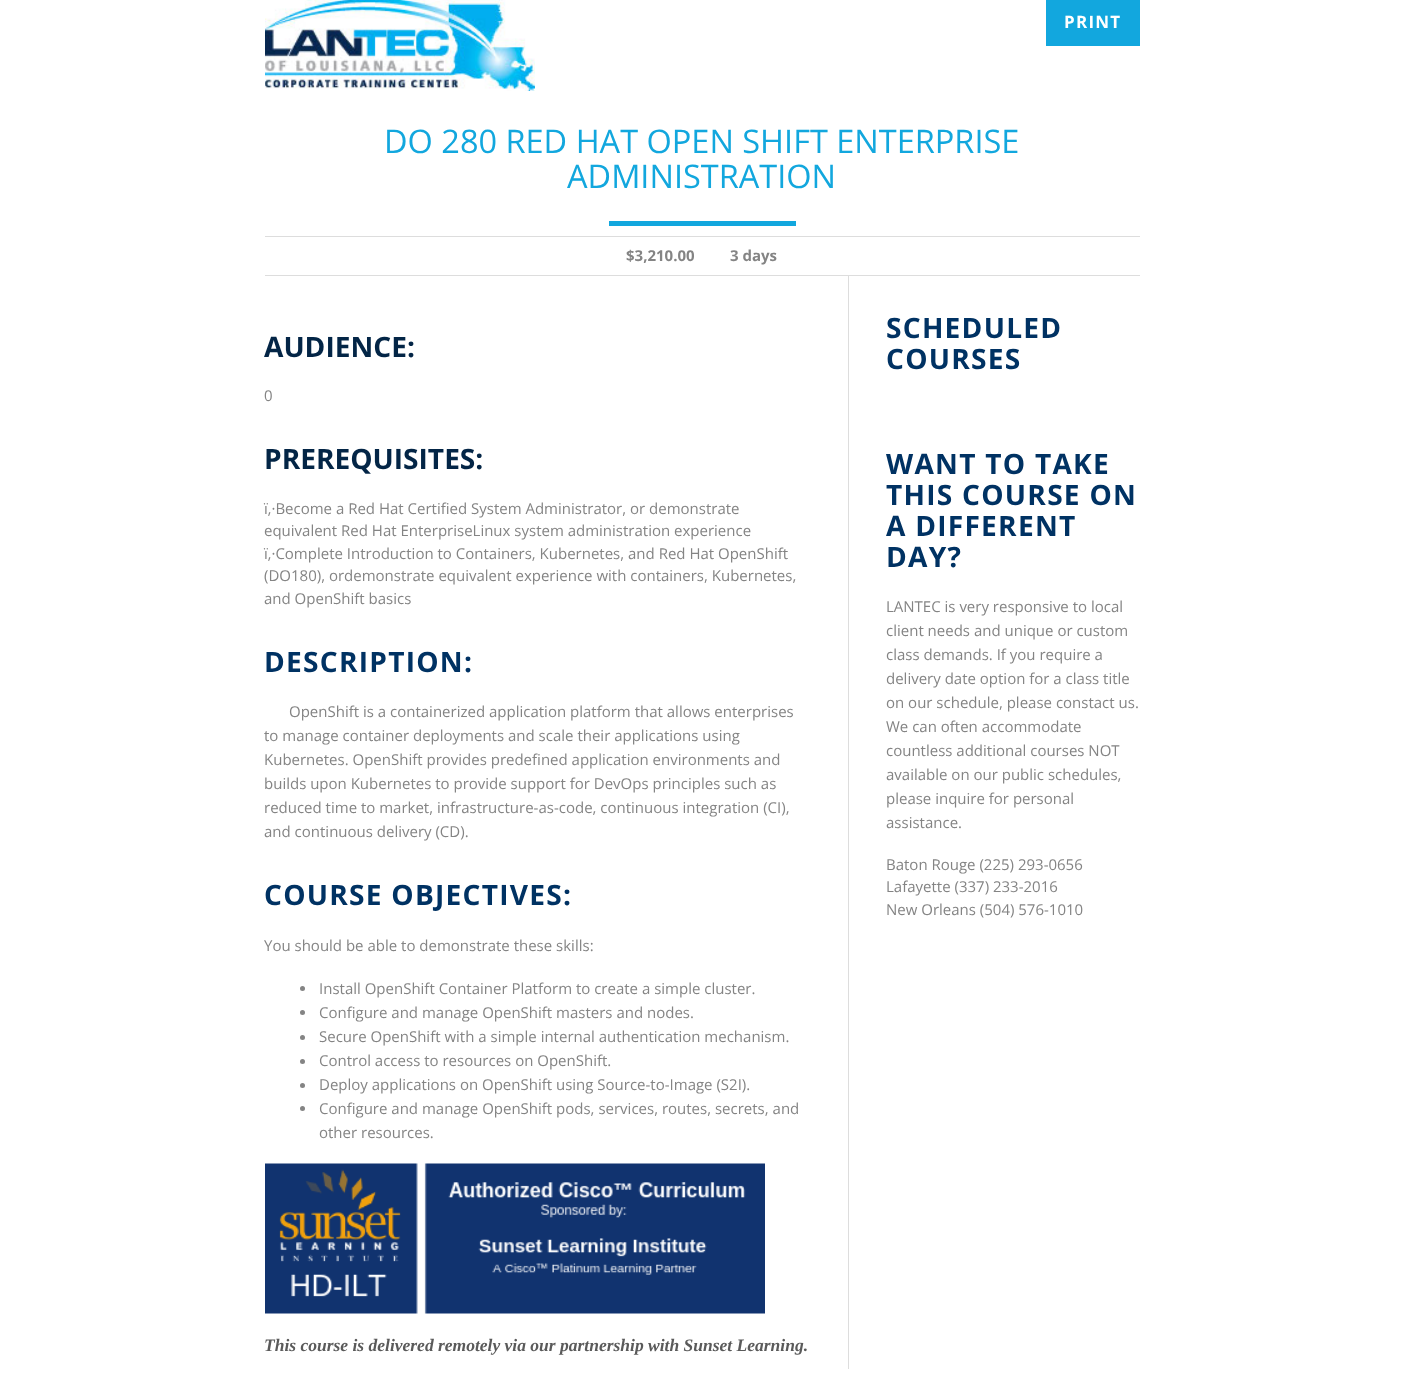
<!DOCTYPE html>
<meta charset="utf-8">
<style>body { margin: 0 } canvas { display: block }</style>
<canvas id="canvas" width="1403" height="1394"></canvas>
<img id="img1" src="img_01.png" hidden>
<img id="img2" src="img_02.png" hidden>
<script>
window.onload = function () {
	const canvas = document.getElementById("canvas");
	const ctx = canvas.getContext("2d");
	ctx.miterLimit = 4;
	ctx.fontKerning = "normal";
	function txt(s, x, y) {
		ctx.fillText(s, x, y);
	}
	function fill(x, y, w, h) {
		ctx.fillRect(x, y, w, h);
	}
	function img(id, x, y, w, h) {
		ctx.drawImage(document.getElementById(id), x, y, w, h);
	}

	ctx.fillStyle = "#FFFFFF";
	fill(0, 0, 1403, 1394);
	img("img1", 265, 0, 270, 91);
	ctx.fillStyle = "#12A7DE";
	fill(1046, 0, 94, 46);
	ctx.fillStyle = "#DDDDDD";
	fill(265, 236, 875, 1);
	ctx.fillStyle = "#12A7DE";
	fill(609, 221, 187, 5);
	ctx.fillStyle = "#DDDDDD";
	fill(265, 275, 875, 1);
	ctx.fillStyle = "#848484";
	ctx.beginPath();
	ctx.arc(302.5, 988.5, 2.5, 0, Math.PI * 2);
	ctx.fill();
	ctx.beginPath();
	ctx.arc(302.5, 1012.5, 2.5, 0, Math.PI * 2);
	ctx.fill();
	ctx.beginPath();
	ctx.arc(302.5, 1037.5, 2.5, 0, Math.PI * 2);
	ctx.fill();
	ctx.beginPath();
	ctx.arc(302.5, 1061.5, 2.5, 0, Math.PI * 2);
	ctx.fill();
	ctx.beginPath();
	ctx.arc(302.5, 1085.5, 2.5, 0, Math.PI * 2);
	ctx.fill();
	ctx.beginPath();
	ctx.arc(302.5, 1108.5, 2.5, 0, Math.PI * 2);
	ctx.fill();
	img("img2", 265, 1163, 500, 151);
	ctx.fillStyle = "#DDDDDD";
	fill(848, 276, 1, 1093);
	ctx.letterSpacing = "1.25px";
	ctx.font = "bold 17px Open Sans";
	ctx.fillStyle = "#FFFFFF";
	txt("PRINT", 1064, 28);
	ctx.letterSpacing = "0px";
	ctx.font = "32.5px Open Sans";
	ctx.fillStyle = "#12A7DE";
	txt("DO 280 RED HAT OPEN SHIFT ENTERPRISE", 384, 153);
	txt("ADMINISTRATION", 567, 188);
	ctx.font = "bold 15px Open Sans";
	ctx.fillStyle = "#848484";
	txt("$3,210.00", 626, 261);
	txt("3 days", 730, 261);
	ctx.font = "bold 28.1px Open Sans";
	ctx.fillStyle = "#032546";
	txt("AUDIENCE:", 264, 357);
	ctx.font = "15px Open Sans";
	ctx.fillStyle = "#848484";
	txt("0", 264, 401);
	ctx.font = "bold 28.1px Open Sans";
	ctx.fillStyle = "#032546";
	txt("PREREQUISITES:", 264, 469);
	ctx.font = "15px Open Sans";
	ctx.fillStyle = "#848484";
	txt("ï‚·Become a Red Hat Certified System Administrator, or demonstrate", 264, 514);
	txt("equivalent Red Hat EnterpriseLinux system administration experience", 264, 536);
	txt("ï‚·Complete Introduction to Containers, Kubernetes, and Red Hat OpenShift", 264, 559);
	txt("(DO180), ordemonstrate equivalent experience with containers, Kubernetes,", 264, 581);
	txt("and OpenShift basics", 264, 604);
	ctx.letterSpacing = "1.25px";
	ctx.font = "bold 28.1px Open Sans";
	ctx.fillStyle = "#003263";
	txt("DESCRIPTION:", 264, 672);
	ctx.letterSpacing = "0px";
	ctx.font = "15px Open Sans";
	ctx.fillStyle = "#848484";
	txt("OpenShift is a containerized application platform that allows enterprises", 289, 717);
	txt("to manage container deployments and scale their applications using", 264, 741);
	txt("Kubernetes. OpenShift provides predefined application environments and", 264, 765);
	txt("builds upon Kubernetes to provide support for DevOps principles such as", 264, 789);
	txt("reduced time to market, infrastructure-as-code, continuous integration (CI),", 264, 813);
	txt("and continuous delivery (CD).", 264, 837);
	ctx.letterSpacing = "1.25px";
	ctx.font = "bold 28.1px Open Sans";
	ctx.fillStyle = "#003263";
	txt("COURSE OBJECTIVES:", 264, 905);
	ctx.letterSpacing = "0px";
	ctx.font = "15px Open Sans";
	ctx.fillStyle = "#848484";
	txt("You should be able to demonstrate these skills:", 264, 951);
	txt("Install OpenShift Container Platform to create a simple cluster.", 319, 994);
	txt("Configure and manage OpenShift masters and nodes.", 319, 1018);
	txt("Secure OpenShift with a simple internal authentication mechanism.", 319, 1042);
	txt("Control access to resources on OpenShift.", 319, 1066);
	txt("Deploy applications on OpenShift using Source-to-Image (S2I).", 319, 1090);
	txt("Configure and manage OpenShift pods, services, routes, secrets, and", 319, 1114);
	txt("other resources.", 319, 1138);
	ctx.font = "italic bold 17.5px Liberation Serif";
	ctx.fillStyle = "#5A5A5A";
	txt("This course is delivered remotely via our partnership with Sunset Learning.", 264, 1351);
	ctx.letterSpacing = "1.25px";
	ctx.font = "bold 28.1px Open Sans";
	ctx.fillStyle = "#003263";
	txt("SCHEDULED", 886, 338);
	txt("COURSES", 886, 369);
	txt("WANT TO TAKE", 886, 474);
	txt("THIS COURSE ON", 886, 505);
	txt("A DIFFERENT", 886, 536);
	txt("DAY?", 886, 567);
	ctx.letterSpacing = "0px";
	ctx.font = "15px Open Sans";
	ctx.fillStyle = "#848484";
	txt("LANTEC is very responsive to local", 886, 612);
	txt("client needs and unique or custom", 886, 636);
	txt("class demands. If you require a", 886, 660);
	txt("delivery date option for a class title", 886, 684);
	txt("on our schedule, please constact us.", 886, 708);
	txt("We can often accommodate", 886, 732);
	txt("countless additional courses NOT", 886, 756);
	txt("available on our public schedules,", 886, 780);
	txt("please inquire for personal", 886, 804);
	txt("assistance.", 886, 828);
	txt("Baton Rouge (225) 293-0656", 886, 870);
	txt("Lafayette (337) 233-2016", 886, 892);
	txt("New Orleans (504) 576-1010", 886, 915);
};
</script>
